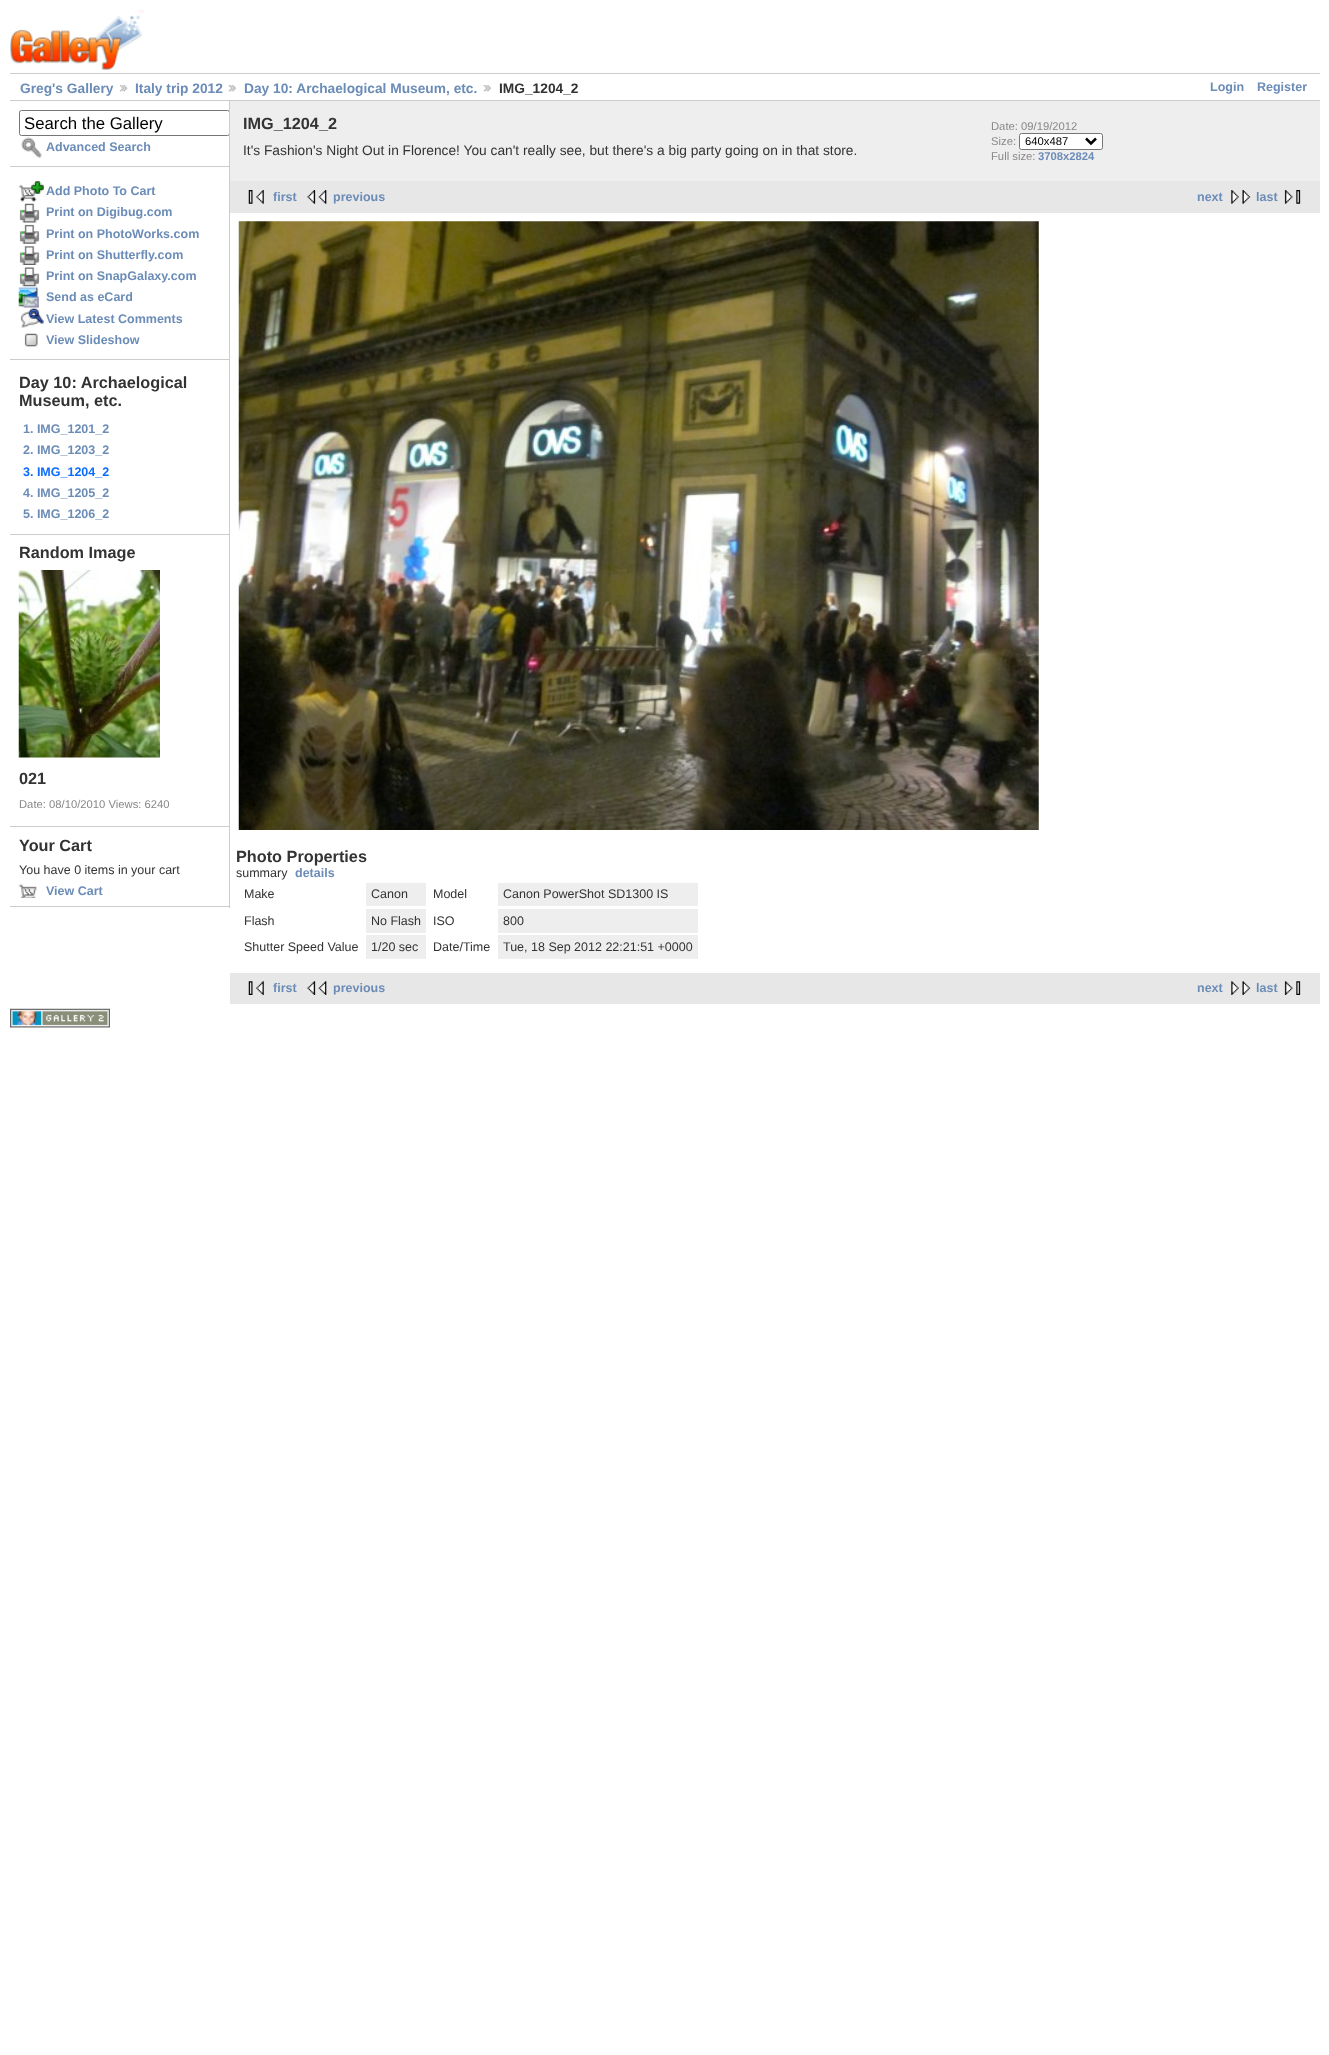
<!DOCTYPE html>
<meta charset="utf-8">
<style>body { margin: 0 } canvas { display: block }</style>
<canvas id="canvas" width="1329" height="2055"></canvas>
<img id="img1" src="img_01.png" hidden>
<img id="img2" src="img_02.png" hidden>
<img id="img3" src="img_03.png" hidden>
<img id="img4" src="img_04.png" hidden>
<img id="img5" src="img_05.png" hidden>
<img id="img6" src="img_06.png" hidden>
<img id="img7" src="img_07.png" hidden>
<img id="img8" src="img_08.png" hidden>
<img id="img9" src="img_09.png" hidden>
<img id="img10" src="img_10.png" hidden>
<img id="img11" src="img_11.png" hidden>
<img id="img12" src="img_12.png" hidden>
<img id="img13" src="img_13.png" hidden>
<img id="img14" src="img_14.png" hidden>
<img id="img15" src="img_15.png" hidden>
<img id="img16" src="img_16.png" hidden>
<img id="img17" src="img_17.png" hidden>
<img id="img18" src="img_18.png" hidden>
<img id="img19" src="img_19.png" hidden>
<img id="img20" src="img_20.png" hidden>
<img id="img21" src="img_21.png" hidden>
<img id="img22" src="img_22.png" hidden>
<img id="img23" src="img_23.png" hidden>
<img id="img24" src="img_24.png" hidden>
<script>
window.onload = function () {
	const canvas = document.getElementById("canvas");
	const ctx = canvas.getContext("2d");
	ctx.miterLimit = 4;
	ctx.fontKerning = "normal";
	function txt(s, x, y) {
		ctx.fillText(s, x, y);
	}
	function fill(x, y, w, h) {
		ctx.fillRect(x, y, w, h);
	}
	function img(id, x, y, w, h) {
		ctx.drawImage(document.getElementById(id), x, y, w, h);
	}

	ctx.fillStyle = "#FFFFFF";
	fill(0, 0, 1329, 2055);
	img("img1", 10, 10, 134, 60);
	ctx.fillStyle = "#CCCCCC";
	fill(10, 73, 1310, 1);
	fill(10, 100, 1310, 1);
	img("img2", 120, 84, 8, 8);
	img("img3", 228, 85, 9, 7);
	img("img3", 483, 85, 9, 7);
	fill(229, 101, 1, 807);
	fill(10, 166, 219, 1);
	ctx.save();
	ctx.beginPath();
	ctx.rect(10, 101, 219, 807);
	ctx.clip();
	ctx.beginPath();
	ctx.roundRect(19.5, 110.5, 210, 25, 2);
	ctx.strokeStyle = "#767676";
	ctx.stroke();
	ctx.restore();
	img("img4", 21, 137, 21, 21);
	fill(10, 359, 219, 1);
	img("img5", 18, 181, 26, 21);
	img("img6", 19, 203, 21, 20);
	img("img7", 19, 224, 21, 20);
	img("img8", 19, 246, 21, 19);
	img("img9", 19, 267, 21, 20);
	img("img10", 18, 287, 21, 21);
	img("img11", 20, 308, 24, 20);
	img("img12", 24, 333, 14, 14);
	fill(10, 534, 219, 1);
	fill(10, 826, 219, 1);
	img("img13", 18, 570, 142, 188);
	fill(10, 906, 219, 1);
	img("img14", 18, 884, 19, 14);
	ctx.fillStyle = "#EEEEEE";
	fill(230, 101, 1090, 80);
	ctx.fillStyle = "#FFFFFF";
	ctx.beginPath();
	ctx.roundRect(1019.5, 133.5, 83, 16, 2);
	ctx.fill();
	ctx.strokeStyle = "#767676";
	ctx.stroke();
	ctx.beginPath();
	ctx.moveTo(1086, 138.5);
	ctx.lineTo(1091, 143.5);
	ctx.lineTo(1096, 138.5);
	ctx.strokeStyle = "#000000";
	ctx.lineWidth = 2.5;
	ctx.stroke();
	ctx.fillStyle = "#E7E7E7";
	fill(230, 181, 1090, 32);
	img("img15", 248, 190, 16, 14);
	img("img16", 307, 190, 20, 14);
	img("img17", 1231, 190, 20, 14);
	img("img18", 1284, 190, 17, 14);
	img("img19", 238, 221, 801, 609);
	ctx.fillStyle = "#EEEEEE";
	fill(366, 883, 60, 23);
	fill(498, 883, 200, 23);
	fill(366, 909, 60, 24);
	fill(498, 909, 200, 24);
	fill(366, 935, 60, 24);
	fill(498, 935, 200, 24);
	ctx.fillStyle = "#E7E7E7";
	fill(230, 973, 1090, 31);
	img("img20", 248, 981, 16, 14);
	img("img21", 307, 981, 20, 14);
	img("img22", 1231, 981, 20, 14);
	img("img23", 1284, 981, 17, 14);
	img("img24", 10, 1008, 100, 20);
	ctx.font = "bold 13.75px Liberation Sans";
	ctx.fillStyle = "#6B8CB7";
	txt("Greg's Gallery", 20, 93);
	txt("Italy trip 2012", 135, 93);
	txt("Day 10: Archaelogical Museum, etc.", 244, 93);
	ctx.fillStyle = "#333333";
	txt("IMG_1204_2", 499, 93);
	ctx.font = "bold 12.5px Liberation Sans";
	ctx.fillStyle = "#6B8CB7";
	txt("Login", 1210, 91);
	txt("Register", 1257, 91);
	ctx.font = "16.75px Liberation Sans";
	ctx.fillStyle = "#000000";
	txt("Search the Gallery", 24, 129);
	ctx.font = "bold 12.5px Liberation Sans";
	ctx.fillStyle = "#6B8CB7";
	txt("Advanced Search", 46, 151);
	txt("Add Photo To Cart", 46, 195);
	txt("Print on Digibug.com", 46, 216);
	txt("Print on PhotoWorks.com", 46, 238);
	txt("Print on Shutterfly.com", 46, 259);
	txt("Print on SnapGalaxy.com", 46, 280);
	txt("Send as eCard", 46, 301);
	txt("View Latest Comments", 46, 323);
	txt("View Slideshow", 46, 344);
	ctx.font = "bold 16.25px Liberation Sans";
	ctx.fillStyle = "#333333";
	txt("Day 10: Archaelogical", 19, 388);
	txt("Museum, etc.", 19, 406);
	ctx.font = "bold 12.5px Liberation Sans";
	ctx.fillStyle = "#6B8CB7";
	txt("1. IMG_1201_2", 23, 433);
	txt("2. IMG_1203_2", 23, 454);
	ctx.fillStyle = "#0B6CFF";
	txt("3. IMG_1204_2", 23, 476);
	ctx.fillStyle = "#6B8CB7";
	txt("4. IMG_1205_2", 23, 497);
	txt("5. IMG_1206_2", 23, 518);
	ctx.font = "bold 16.25px Liberation Sans";
	ctx.fillStyle = "#333333";
	txt("Random Image", 19, 558);
	txt("021", 19, 784);
	ctx.font = "11.25px Liberation Sans";
	ctx.fillStyle = "#888888";
	txt("Date: 08/10/2010 Views: 6240", 19, 808);
	ctx.font = "bold 16.25px Liberation Sans";
	ctx.fillStyle = "#333333";
	txt("Your Cart", 19, 851);
	ctx.font = "12.5px Liberation Sans";
	txt("You have 0 items in your cart", 19, 874);
	ctx.font = "bold 12.5px Liberation Sans";
	ctx.fillStyle = "#6B8CB7";
	txt("View Cart", 46, 895);
	ctx.font = "bold 16.25px Liberation Sans";
	ctx.fillStyle = "#333333";
	txt("IMG_1204_2", 243, 129);
	ctx.font = "13.75px Liberation Sans";
	txt("It's Fashion's Night Out in Florence! You can't really see, but there's a big party going on in that store.", 243, 155);
	ctx.font = "11.25px Liberation Sans";
	ctx.fillStyle = "#888888";
	txt("Date: 09/19/2012", 991, 130);
	txt("Size:", 991, 145);
	ctx.fillStyle = "#000000";
	txt("640x487", 1025, 145);
	ctx.fillStyle = "#888888";
	txt("Full size:", 991, 160);
	ctx.font = "bold 11.25px Liberation Sans";
	ctx.fillStyle = "#6B8CB7";
	txt("3708x2824", 1038, 160);
	ctx.font = "bold 12.5px Liberation Sans";
	txt("first", 273, 201);
	txt("previous", 333, 201);
	txt("next", 1197, 201);
	txt("last", 1256, 201);
	ctx.font = "bold 16.25px Liberation Sans";
	ctx.fillStyle = "#333333";
	txt("Photo Properties", 236, 862);
	ctx.font = "12.5px Liberation Sans";
	txt("summary", 236, 877);
	ctx.font = "bold 12.5px Liberation Sans";
	ctx.fillStyle = "#6B8CB7";
	txt("details", 295, 877);
	ctx.font = "12.5px Liberation Sans";
	ctx.fillStyle = "#333333";
	txt("Make", 244, 898);
	txt("Canon", 371, 898);
	txt("Model", 433, 898);
	txt("Canon PowerShot SD1300 IS", 503, 898);
	txt("Flash", 244, 925);
	txt("No Flash", 371, 925);
	txt("ISO", 433, 925);
	txt("800", 503, 925);
	txt("Shutter Speed Value", 244, 951);
	txt("1/20 sec", 371, 951);
	txt("Date/Time", 433, 951);
	txt("Tue, 18 Sep 2012 22:21:51 +0000", 503, 951);
	ctx.font = "bold 12.5px Liberation Sans";
	ctx.fillStyle = "#6B8CB7";
	txt("first", 273, 992);
	txt("previous", 333, 992);
	txt("next", 1197, 992);
	txt("last", 1256, 992);
};
</script>
